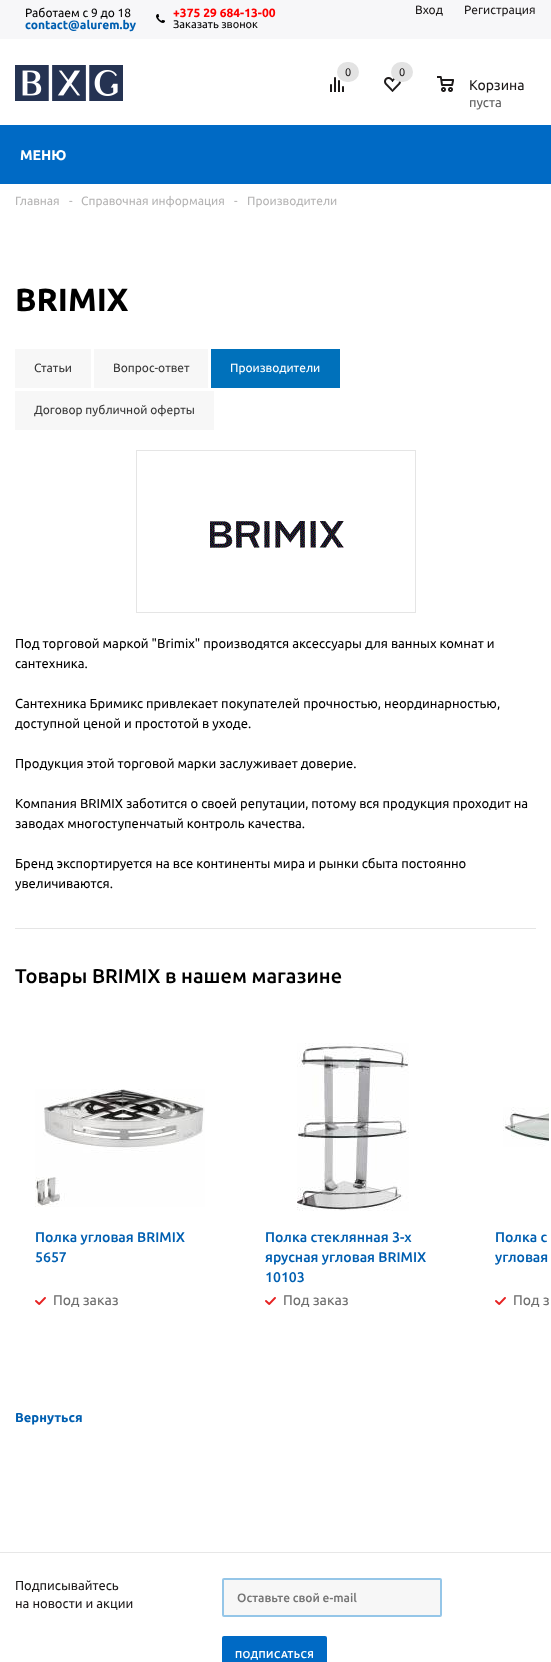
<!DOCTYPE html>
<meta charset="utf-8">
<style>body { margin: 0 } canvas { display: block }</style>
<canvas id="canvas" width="551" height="1662"></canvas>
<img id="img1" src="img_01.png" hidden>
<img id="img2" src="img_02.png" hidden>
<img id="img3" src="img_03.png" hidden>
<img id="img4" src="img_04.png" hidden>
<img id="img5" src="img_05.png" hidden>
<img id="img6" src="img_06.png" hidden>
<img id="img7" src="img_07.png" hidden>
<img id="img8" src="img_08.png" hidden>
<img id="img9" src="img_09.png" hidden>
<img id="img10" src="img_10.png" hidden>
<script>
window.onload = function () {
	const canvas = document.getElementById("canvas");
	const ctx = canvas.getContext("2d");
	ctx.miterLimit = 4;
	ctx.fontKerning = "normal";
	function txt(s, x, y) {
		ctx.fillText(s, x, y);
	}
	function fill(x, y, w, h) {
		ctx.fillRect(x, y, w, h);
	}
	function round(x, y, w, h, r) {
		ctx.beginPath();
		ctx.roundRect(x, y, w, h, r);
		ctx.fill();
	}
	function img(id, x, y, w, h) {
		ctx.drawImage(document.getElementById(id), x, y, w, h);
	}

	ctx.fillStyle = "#FFFFFF";
	fill(0, 0, 551, 1662);
	ctx.fillStyle = "#F7F7F9";
	fill(0, 0, 551, 39);
	img("img1", 156, 14, 9, 9);
	img("img2", 15, 65, 108, 36);
	img("img3", 330, 77, 14, 15);
	ctx.fillStyle = "#E3E3E3";
	round(337, 62, 22, 20, 10);
	img("img4", 384, 77, 17, 15);
	round(391, 62, 22, 20, 10);
	img("img5", 437, 76, 17, 16);
	ctx.fillStyle = "#006AC5";
	fill(0, 125, 551, 59);
	ctx.fillStyle = "#F7F7F7";
	fill(15, 349, 76, 39);
	fill(94, 349, 114, 39);
	ctx.fillStyle = "#0071BB";
	fill(211, 349, 129, 39);
	ctx.fillStyle = "#F7F7F7";
	fill(15, 391, 199, 39);
	ctx.strokeStyle = "#E5E5E5";
	ctx.strokeRect(136.5, 450.5, 279, 162);
	img("img6", 210, 521, 134, 27);
	ctx.fillStyle = "#E5E5E5";
	fill(15, 928, 521, 1);
	img("img7", 35, 1089, 170, 118);
	img("img8", 35, 1297, 11, 8);
	img("img9", 297, 1043, 112, 168);
	img("img8", 265, 1297, 11, 8);
	img("img10", 503, 1107, 46, 40);
	img("img8", 495, 1297, 11, 8);
	ctx.fillStyle = "#E7E7E7";
	fill(0, 1552, 551, 1);
	ctx.fillStyle = "#F7F7F7";
	ctx.beginPath();
	ctx.roundRect(223, 1579, 218, 37, 1);
	ctx.fill();
	ctx.strokeStyle = "#95C6E8";
	ctx.lineWidth = 2;
	ctx.stroke();
	ctx.fillStyle = "#006AC5";
	round(222, 1636, 105, 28, 2);
	ctx.font = "12px Ubuntu";
	ctx.fillStyle = "#000000";
	txt("Работаем с 9 до 18", 25, 17);
	ctx.font = "bold 12px Ubuntu";
	ctx.fillStyle = "#005FB1";
	txt("contact@alurem.by", 25, 29);
	ctx.fillStyle = "#FF0000";
	txt("+375 29 684-13-00", 173, 17);
	ctx.font = "11px Ubuntu";
	ctx.fillStyle = "#000000";
	txt("Заказать звонок", 173, 28);
	ctx.font = "12px Ubuntu";
	ctx.fillStyle = "#1D1A1A";
	txt("Вход", 415, 14);
	txt("Регистрация", 464, 14);
	ctx.font = "11px Ubuntu";
	txt("0", 345, 76);
	txt("0", 399, 76);
	ctx.font = "14px Ubuntu";
	txt("Корзина", 469, 90);
	ctx.font = "13px Ubuntu";
	ctx.fillStyle = "#5F5F5F";
	txt("пуста", 469, 107);
	ctx.font = "bold 14px Ubuntu";
	ctx.fillStyle = "#FFFFFF";
	txt("МЕНЮ", 20, 160);
	ctx.font = "12px Ubuntu";
	ctx.fillStyle = "#B6B5B5";
	txt("Главная", 15, 205);
	txt("-", 69, 205);
	txt("Справочная информация", 81, 205);
	txt("-", 234, 205);
	txt("Производители", 247, 205);
	ctx.font = "bold 32px Ubuntu";
	ctx.fillStyle = "#000000";
	txt("BRIMIX", 15, 311);
	ctx.font = "12px Ubuntu";
	ctx.fillStyle = "#383838";
	txt("Статьи", 34, 372);
	txt("Вопрос-ответ", 113, 372);
	ctx.fillStyle = "#FFFFFF";
	txt("Производители", 230, 372);
	ctx.fillStyle = "#383838";
	txt("Договор публичной оферты", 34, 414);
	ctx.font = "13px Ubuntu";
	ctx.fillStyle = "#000000";
	txt("Под торговой маркой \"Brimix\" производятся аксессуары для ванных комнат и", 15, 648);
	txt("сантехника.", 15, 668);
	txt("Сантехника Бримикс привлекает покупателей прочностью, неординарностью,", 15, 708);
	txt("доступной ценой и простотой в уходе.", 15, 728);
	txt("Продукция этой торговой марки заслуживает доверие.", 15, 768);
	txt("Компания BRIMIX заботится о своей репутации, потому вся продукция проходит на", 15, 808);
	txt("заводах многоступенчатый контроль качества.", 15, 828);
	txt("Бренд экспортируется на все континенты мира и рынки сбыта постоянно", 15, 868);
	txt("увеличиваются.", 15, 888);
	ctx.font = "500 20px Ubuntu";
	txt("Товары BRIMIX в нашем магазине", 15, 983);
	ctx.font = "500 14px Ubuntu";
	ctx.fillStyle = "#005FB1";
	txt("Полка угловая BRIMIX", 35, 1242);
	txt("5657", 35, 1262);
	ctx.font = "14px Ubuntu";
	ctx.fillStyle = "#6D6D6D";
	txt("Под заказ", 53, 1305);
	ctx.font = "500 14px Ubuntu";
	ctx.fillStyle = "#005FB1";
	txt("Полка стеклянная 3-х", 265, 1242);
	txt("ярусная угловая BRIMIX", 265, 1262);
	txt("10103", 265, 1282);
	ctx.font = "14px Ubuntu";
	ctx.fillStyle = "#6D6D6D";
	txt("Под заказ", 283, 1305);
	ctx.font = "500 14px Ubuntu";
	ctx.fillStyle = "#005FB1";
	txt("Полка с", 495, 1242);
	txt("угловая", 495, 1262);
	ctx.font = "14px Ubuntu";
	ctx.fillStyle = "#6D6D6D";
	txt("Под з", 513, 1305);
	ctx.font = "bold 13px Ubuntu";
	ctx.fillStyle = "#005FB1";
	txt("Вернуться", 15, 1422);
	ctx.font = "13px Ubuntu";
	ctx.fillStyle = "#1D1A1A";
	txt("Подписывайтесь", 15, 1590);
	txt("на новости и акции", 15, 1608);
	ctx.font = "500 12px Ubuntu";
	ctx.fillStyle = "#757575";
	txt("Оставьте свой e-mail", 237, 1602);
	ctx.letterSpacing = "0.4px";
	ctx.font = "500 10px Ubuntu";
	ctx.fillStyle = "#FFFFFF";
	txt("ПОДПИСАТЬСЯ", 235, 1658);
};
</script>
